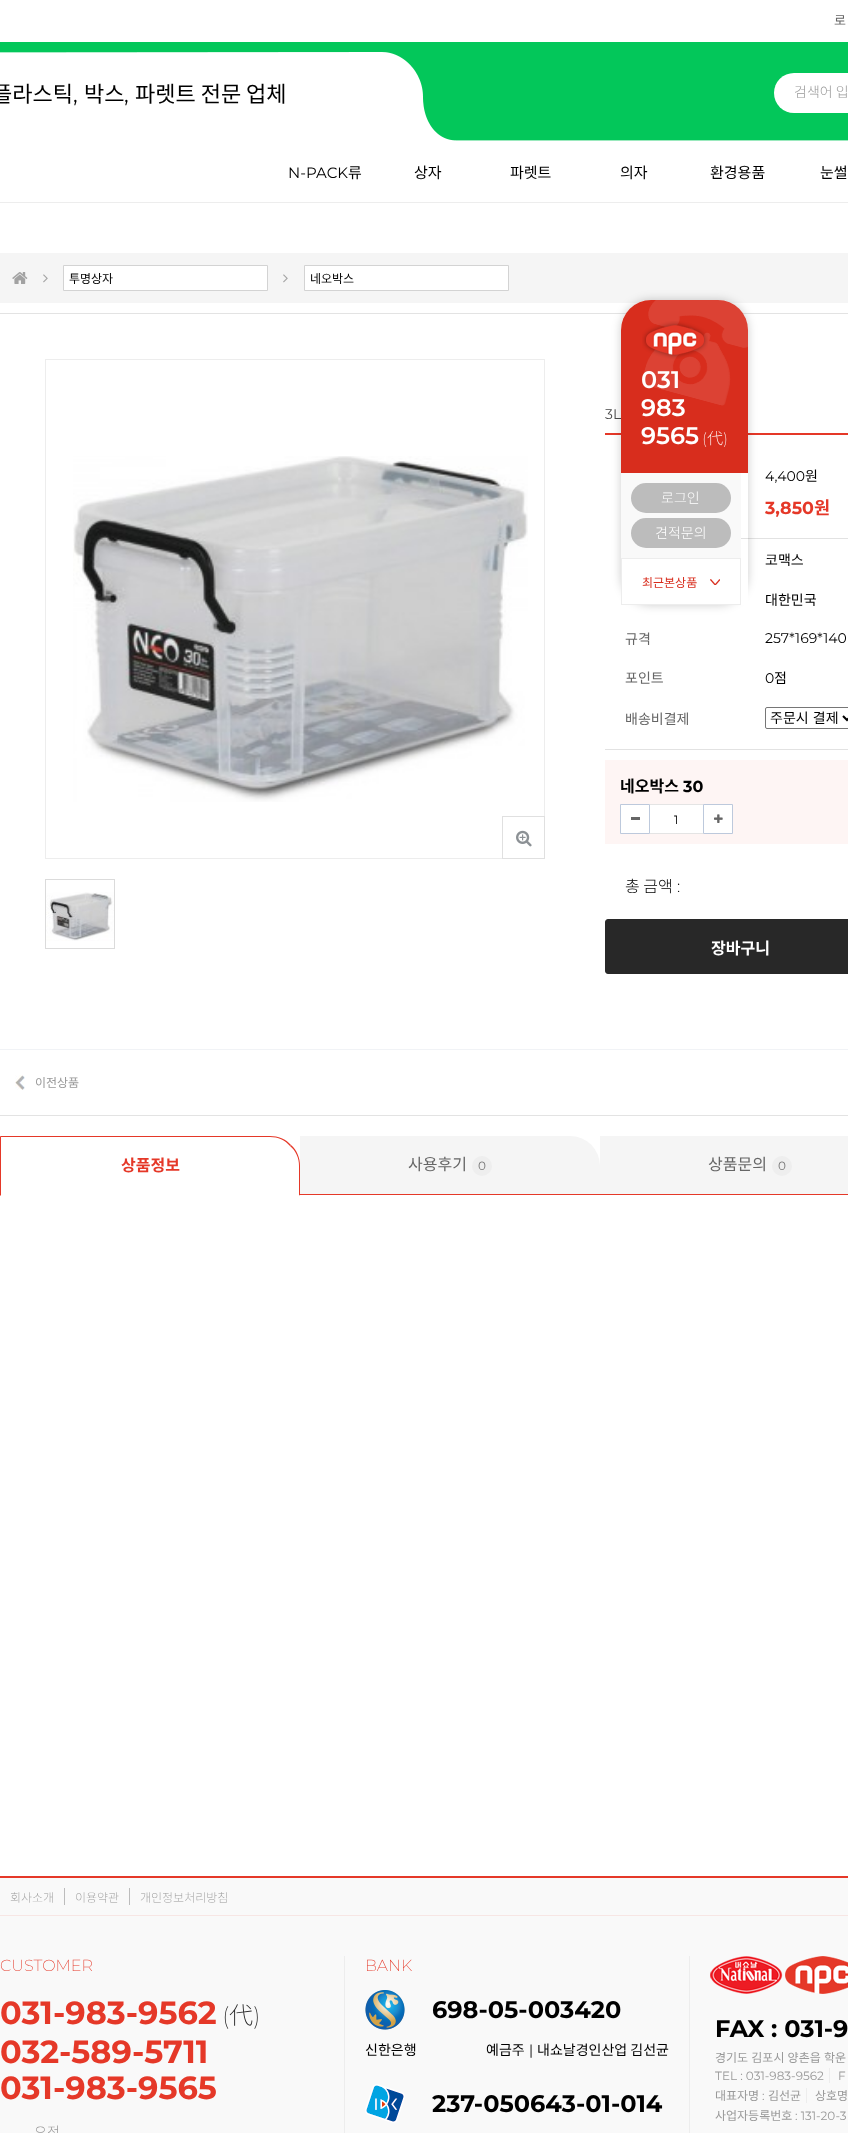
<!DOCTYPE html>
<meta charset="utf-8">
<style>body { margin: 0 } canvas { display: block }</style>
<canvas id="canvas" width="848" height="2133"></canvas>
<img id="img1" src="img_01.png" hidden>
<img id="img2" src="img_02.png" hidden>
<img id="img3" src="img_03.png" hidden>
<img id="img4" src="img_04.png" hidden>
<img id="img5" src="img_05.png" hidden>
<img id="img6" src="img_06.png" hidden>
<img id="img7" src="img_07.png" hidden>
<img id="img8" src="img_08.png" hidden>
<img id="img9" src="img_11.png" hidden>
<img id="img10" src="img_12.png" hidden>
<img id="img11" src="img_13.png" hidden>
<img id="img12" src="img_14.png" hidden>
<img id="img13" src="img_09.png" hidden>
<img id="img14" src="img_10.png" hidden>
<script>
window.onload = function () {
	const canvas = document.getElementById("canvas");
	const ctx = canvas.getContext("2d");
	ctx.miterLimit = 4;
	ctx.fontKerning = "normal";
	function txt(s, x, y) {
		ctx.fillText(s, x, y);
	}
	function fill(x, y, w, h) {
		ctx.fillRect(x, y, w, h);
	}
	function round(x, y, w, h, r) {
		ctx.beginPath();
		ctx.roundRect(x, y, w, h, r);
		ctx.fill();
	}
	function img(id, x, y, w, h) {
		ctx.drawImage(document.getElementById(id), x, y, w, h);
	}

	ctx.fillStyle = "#FFFFFF";
	fill(0, 0, 848, 2133);
	ctx.fillStyle = "#EDEDED";
	fill(0, 202, 848, 1);
	img("img1", 0, 42, 848, 99);
	ctx.fillStyle = "#FFFFFF";
	round(774, 73, 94, 40, 20);
	ctx.fillStyle = "#F5F5F5";
	fill(0, 253, 848, 50);
	img("img2", 12, 272, 16, 12);
	img("img3", 43, 274, 5, 9);
	ctx.fillStyle = "#FFFFFF";
	ctx.beginPath();
	ctx.rect(63.5, 265.5, 204, 25);
	ctx.fill();
	ctx.strokeStyle = "#D3D3D3";
	ctx.stroke();
	img("img3", 283, 274, 5, 9);
	ctx.beginPath();
	ctx.rect(304.5, 265.5, 204, 25);
	ctx.fill();
	ctx.stroke();
	ctx.fillStyle = "#E3E3E3";
	fill(0, 1115, 848, 1);
	fill(0, 313, 848, 1);
	ctx.strokeStyle = "#EDEDED";
	ctx.strokeRect(45.5, 359.5, 499, 499);
	img("img4", 73, 456, 455, 346);
	ctx.strokeStyle = "#E0E0E0";
	ctx.strokeRect(502.5, 816.5, 42, 42);
	img("img5", 516, 830, 16, 17);
	ctx.strokeStyle = "#DBDBDB";
	ctx.strokeRect(45.5, 879.5, 69, 69);
	img("img6", 46, 892, 68, 49);
	ctx.fillStyle = "#E53828";
	fill(605, 433, 243, 2);
	ctx.fillStyle = "#E2E2E2";
	fill(605, 749, 243, 1);
	fill(741, 538, 107, 1);
	ctx.beginPath();
	ctx.roundRect(765.5, 707.5, 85, 21, 1.5);
	ctx.strokeStyle = "#767676";
	ctx.stroke();
	ctx.beginPath();
	ctx.moveTo(843, 716);
	ctx.lineTo(847, 720);
	ctx.lineTo(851, 716);
	ctx.strokeStyle = "#000000";
	ctx.lineWidth = 2;
	ctx.stroke();
	ctx.fillStyle = "#FEF5F4";
	fill(605, 760, 243, 84);
	ctx.fillStyle = "#FFFFFF";
	ctx.beginPath();
	ctx.rect(620.5, 804.5, 29, 29);
	ctx.fill();
	ctx.strokeStyle = "#BDC9DC";
	ctx.lineWidth = 1;
	ctx.stroke();
	ctx.fillStyle = "#666666";
	fill(631, 817, 9, 3);
	ctx.fillStyle = "#FFFFFF";
	fill(650, 805, 53, 28);
	ctx.fillStyle = "#E4E4E4";
	fill(650, 804, 53, 1);
	fill(650, 833, 53, 1);
	ctx.fillStyle = "#FFFFFF";
	ctx.beginPath();
	ctx.rect(703.5, 804.5, 29, 29);
	ctx.fill();
	ctx.stroke();
	img("img7", 714, 814, 9, 9);
	ctx.fillStyle = "#282828";
	ctx.beginPath();
	ctx.roundRect(605.5, 919.5, 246, 54, 2.5);
	ctx.fill();
	ctx.strokeStyle = "#282828";
	ctx.stroke();
	ctx.fillStyle = "#F1F3F6";
	fill(0, 1049, 848, 1);
	img("img8", 15, 1075, 10, 15);
	ctx.fillStyle = "#E53828";
	ctx.beginPath();
	ctx.moveTo(0, 1136);
	ctx.lineTo(1, 1137);
	ctx.lineTo(270, 1137);
	ctx.bezierCurveTo(278, 1137, 285, 1140, 290, 1146);
	ctx.lineTo(291, 1145);
	ctx.bezierCurveTo(286, 1139, 278, 1136, 270, 1136);
	ctx.closePath();
	ctx.fill();
	ctx.beginPath();
	ctx.moveTo(300, 1196);
	ctx.lineTo(300, 1166);
	ctx.bezierCurveTo(300, 1158, 297, 1150, 291, 1145);
	ctx.lineTo(290, 1146);
	ctx.bezierCurveTo(296, 1151, 299, 1158, 299, 1166);
	ctx.lineTo(299, 1195);
	ctx.closePath();
	ctx.fill();
	ctx.fillStyle = "#FFFFFF";
	ctx.beginPath();
	ctx.moveTo(300, 1196);
	ctx.lineTo(299, 1195);
	ctx.lineTo(1, 1195);
	ctx.lineTo(0, 1196);
	ctx.closePath();
	ctx.fill();
	ctx.fillStyle = "#E53828";
	ctx.beginPath();
	ctx.moveTo(0, 1136);
	ctx.lineTo(0, 1196);
	ctx.lineTo(1, 1195);
	ctx.lineTo(1, 1137);
	ctx.closePath();
	ctx.fill();
	ctx.fillStyle = "#F5F5F5";
	ctx.beginPath();
	ctx.roundRect(300, 1136, 300, 59, [0, 30, 0, 0]);
	ctx.fill();
	ctx.fillStyle = "#E53828";
	fill(300, 1194, 548, 1);
	ctx.fillStyle = "#EEEEEE";
	ctx.beginPath();
	ctx.arc(482, 1166, 10, 0, Math.PI * 2);
	ctx.fill();
	ctx.fillStyle = "#F5F5F5";
	fill(600, 1136, 248, 58);
	ctx.fillStyle = "#EEEEEE";
	ctx.beginPath();
	ctx.arc(782, 1166, 10, 0, Math.PI * 2);
	ctx.fill();
	ctx.save();
	ctx.beginPath();
	ctx.moveTo(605, 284);
	ctx.lineTo(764, 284);
	ctx.lineTo(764, 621);
	ctx.lineTo(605, 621);
	ctx.closePath();
	ctx.moveTo(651, 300);
	ctx.lineTo(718, 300);
	ctx.bezierCurveTo(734.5, 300, 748, 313.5, 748, 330);
	ctx.lineTo(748, 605);
	ctx.lineTo(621, 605);
	ctx.lineTo(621, 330);
	ctx.bezierCurveTo(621, 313.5, 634.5, 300, 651, 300);
	ctx.closePath();
	ctx.clip("evenodd");
	ctx.fillStyle = "rgba(0, 0, 0, 0.2)";
	ctx.filter = "blur(5px)";
	ctx.beginPath();
	ctx.roundRect(621, 300, 127, 305, 30);
	ctx.fill();
	ctx.filter = "none";
	ctx.restore();
	ctx.fillStyle = "#F9F9F9";
	fill(621, 473, 120, 85);
	ctx.fillStyle = "#BCBCBC";
	round(631, 483, 100, 30, 15);
	round(631, 518, 100, 30, 15);
	ctx.strokeStyle = "#EDEDED";
	ctx.strokeRect(621.5, 558.5, 119, 46);
	img("img9", 710, 579, 10, 6);
	ctx.fillStyle = "#F9F9F9";
	fill(0, 1878, 848, 255);
	ctx.fillStyle = "#E53828";
	fill(0, 1876, 848, 2);
	ctx.fillStyle = "#F7E6E4";
	fill(0, 1915, 848, 1);
	ctx.fillStyle = "#BCBCBC";
	fill(64, 1888, 1, 17);
	fill(129, 1888, 1, 17);
	ctx.fillStyle = "#EDEDED";
	fill(344, 1956, 1, 177);
	fill(689, 1956, 1, 177);
	img("img10", 365, 1990, 40, 40);
	img("img11", 365, 2084, 40, 39);
	img("img12", 710, 1956, 138, 38);
	fill(829, 2068, 1, 15);
	fill(806, 2088, 1, 15);
	ctx.font = "13px Noto Sans KR";
	ctx.fillStyle = "#666666";
	txt("로", 834, 25);
	ctx.font = "22px Noto Sans KR";
	ctx.fillStyle = "#000000";
	txt("플라스틱", -8, 102);
	ctx.font = "22px Montserrat";
	txt(",", 73, 102);
	ctx.font = "22px Noto Sans KR";
	txt("박스", 84, 102);
	ctx.font = "22px Montserrat";
	txt(",", 124, 102);
	ctx.font = "22px Noto Sans KR";
	txt("파렛트 전문 업체", 135, 102);
	ctx.font = "300 14px Noto Sans KR";
	ctx.fillStyle = "#999999";
	txt("검색어 입", 794, 97);
	ctx.font = "15px Montserrat";
	ctx.fillStyle = "#000000";
	txt("N-PACK", 288, 178);
	ctx.font = "15px Noto Sans KR";
	txt("류", 348, 178);
	txt("상자", 414, 178);
	txt("파렛트", 510, 178);
	txt("의자", 620, 178);
	txt("환경용품", 710, 178);
	txt("눈썰", 820, 178);
	ctx.font = "12px Noto Sans KR";
	txt("투명상자", 69, 283);
	txt("네오박스", 310, 283);
	ctx.font = "14px Montserrat";
	ctx.fillStyle = "#474747";
	txt("3L", 605, 419);
	ctx.fillStyle = "#000000";
	txt("4,400", 765, 481);
	ctx.font = "14px Noto Sans KR";
	txt("원", 805, 481);
	ctx.font = "bold 17.5px Montserrat";
	ctx.fillStyle = "#E53828";
	txt("3,850", 765, 514);
	ctx.font = "bold 17.5px Noto Sans KR";
	txt("원", 814, 514);
	ctx.font = "14px Noto Sans KR";
	ctx.fillStyle = "#000000";
	txt("코맥스", 765, 565);
	txt("대한민국", 765, 605);
	ctx.fillStyle = "#666666";
	txt("규격", 625, 644);
	ctx.font = "14px Montserrat";
	ctx.fillStyle = "#000000";
	txt("257*169*140", 765, 643);
	ctx.font = "14px Noto Sans KR";
	ctx.fillStyle = "#666666";
	txt("포인트", 625, 683);
	ctx.font = "14px Montserrat";
	ctx.fillStyle = "#000000";
	txt("0", 765, 683);
	ctx.font = "14px Noto Sans KR";
	txt("점", 774, 683);
	ctx.fillStyle = "#666666";
	txt("배송비결제", 625, 724);
	ctx.wordSpacing = "1px";
	ctx.fillStyle = "#000000";
	txt("주문시 결제", 770, 723);
	ctx.wordSpacing = "0px";
	ctx.font = "bold 16px Noto Sans KR";
	txt("네오박스", 620, 792);
	ctx.font = "bold 16px Montserrat";
	txt("30", 683, 792);
	ctx.font = "12px Montserrat";
	txt("1", 674, 824);
	ctx.font = "300 16px Noto Sans KR";
	txt("총 금액", 625, 892);
	ctx.font = "300 16px Montserrat";
	txt(":", 677, 892);
	ctx.font = "bold 16px Noto Sans KR";
	ctx.fillStyle = "#FFFFFF";
	txt("장바구니", 711, 954);
	ctx.font = "12px Noto Sans KR";
	ctx.fillStyle = "#999999";
	txt("이전상품", 35, 1087);
	ctx.font = "bold 16px Noto Sans KR";
	ctx.fillStyle = "#E53828";
	txt("상품정보", 121, 1171);
	ctx.font = "16px Noto Sans KR";
	ctx.fillStyle = "#666666";
	txt("사용후기", 408, 1170);
	ctx.font = "12px Montserrat";
	ctx.fillStyle = "#777777";
	txt("0", 478, 1170);
	ctx.font = "16px Noto Sans KR";
	ctx.fillStyle = "#666666";
	txt("상품문의", 708, 1170);
	ctx.font = "12px Montserrat";
	ctx.fillStyle = "#777777";
	txt("0", 778, 1170);
	ctx.fillStyle = "#D82D1D";
	ctx.beginPath();
	ctx.roundRect(621, 300, 127, 173, [30, 30, 0, 0]);
	ctx.fill();
	img("img13", 642, 300, 106, 106);
	img("img14", 642, 321, 66, 38);
	ctx.font = "600 24px Montserrat";
	ctx.fillStyle = "#FFFFFF";
	txt("031", 641, 388);
	txt("983", 641, 416);
	txt("9565", 641, 444);
	ctx.font = "200 16px Montserrat";
	txt("(", 702, 444);
	ctx.font = "200 16px Noto Sans KR";
	txt("代", 707, 444);
	ctx.font = "200 16px Montserrat";
	txt(")", 723, 444);
	ctx.font = "300 14px Noto Sans KR";
	txt("로그인", 661, 503);
	txt("견적문의", 655, 538);
	ctx.font = "12px Noto Sans KR";
	ctx.fillStyle = "#D82D1D";
	txt("최근본상품", 642, 587);
	ctx.font = "200 12px Noto Sans KR";
	ctx.fillStyle = "#999999";
	txt("회사소개", 10, 1902);
	txt("이용약관", 75, 1902);
	txt("개인정보처리방침", 140, 1902);
	ctx.font = "200 16px Montserrat";
	ctx.fillStyle = "#E53828";
	txt("CUSTOMER", 0, 1971);
	ctx.font = "bold 32px Montserrat";
	txt("031-983-9562", 0, 2024);
	ctx.font = "200 24px Montserrat";
	ctx.fillStyle = "#282828";
	txt("(", 222, 2024);
	ctx.font = "200 24px Noto Sans KR";
	txt("代", 229, 2024);
	ctx.font = "200 24px Montserrat";
	txt(")", 253, 2024);
	ctx.font = "bold 32px Montserrat";
	ctx.fillStyle = "#E53828";
	txt("032-589-5711", 0, 2063);
	txt("031-983-9565", 0, 2099);
	ctx.font = "300 14px Noto Sans KR";
	ctx.fillStyle = "#999999";
	txt("오전", 34, 2137);
	ctx.font = "200 16px Montserrat";
	ctx.fillStyle = "#E53828";
	txt("BANK", 365, 1971);
	ctx.font = "bold 24px Montserrat";
	ctx.fillStyle = "#000000";
	txt("698-05-003420", 432, 2018);
	ctx.font = "14px Noto Sans KR";
	txt("신한은행", 365, 2055);
	txt("예금주", 486, 2055);
	ctx.font = "14px Montserrat";
	txt("|", 529, 2055);
	ctx.font = "14px Noto Sans KR";
	txt("내쇼날경인산업 김선균", 537, 2055);
	ctx.font = "bold 24px Montserrat";
	txt("237-050643-01-014", 432, 2112);
	txt("FAX : 031-9", 715, 2037);
	ctx.wordSpacing = "0.5px";
	ctx.font = "12px Noto Sans KR";
	ctx.fillStyle = "#999999";
	txt("경기도 김포시 양촌읍 학운", 715, 2062);
	ctx.wordSpacing = "0px";
	ctx.font = "12px Montserrat";
	txt("TEL : 031-983-9562", 715, 2080);
	txt("F", 838, 2080);
	ctx.font = "12px Noto Sans KR";
	txt("대표자명", 715, 2100);
	ctx.font = "12px Montserrat";
	txt(":", 762, 2100);
	ctx.font = "12px Noto Sans KR";
	txt("김선균", 768, 2100);
	txt("상호명", 815, 2100);
	txt("사업자등록번호", 715, 2120);
	ctx.font = "12px Montserrat";
	txt(": 131-20-3", 795, 2120);
};
</script>
